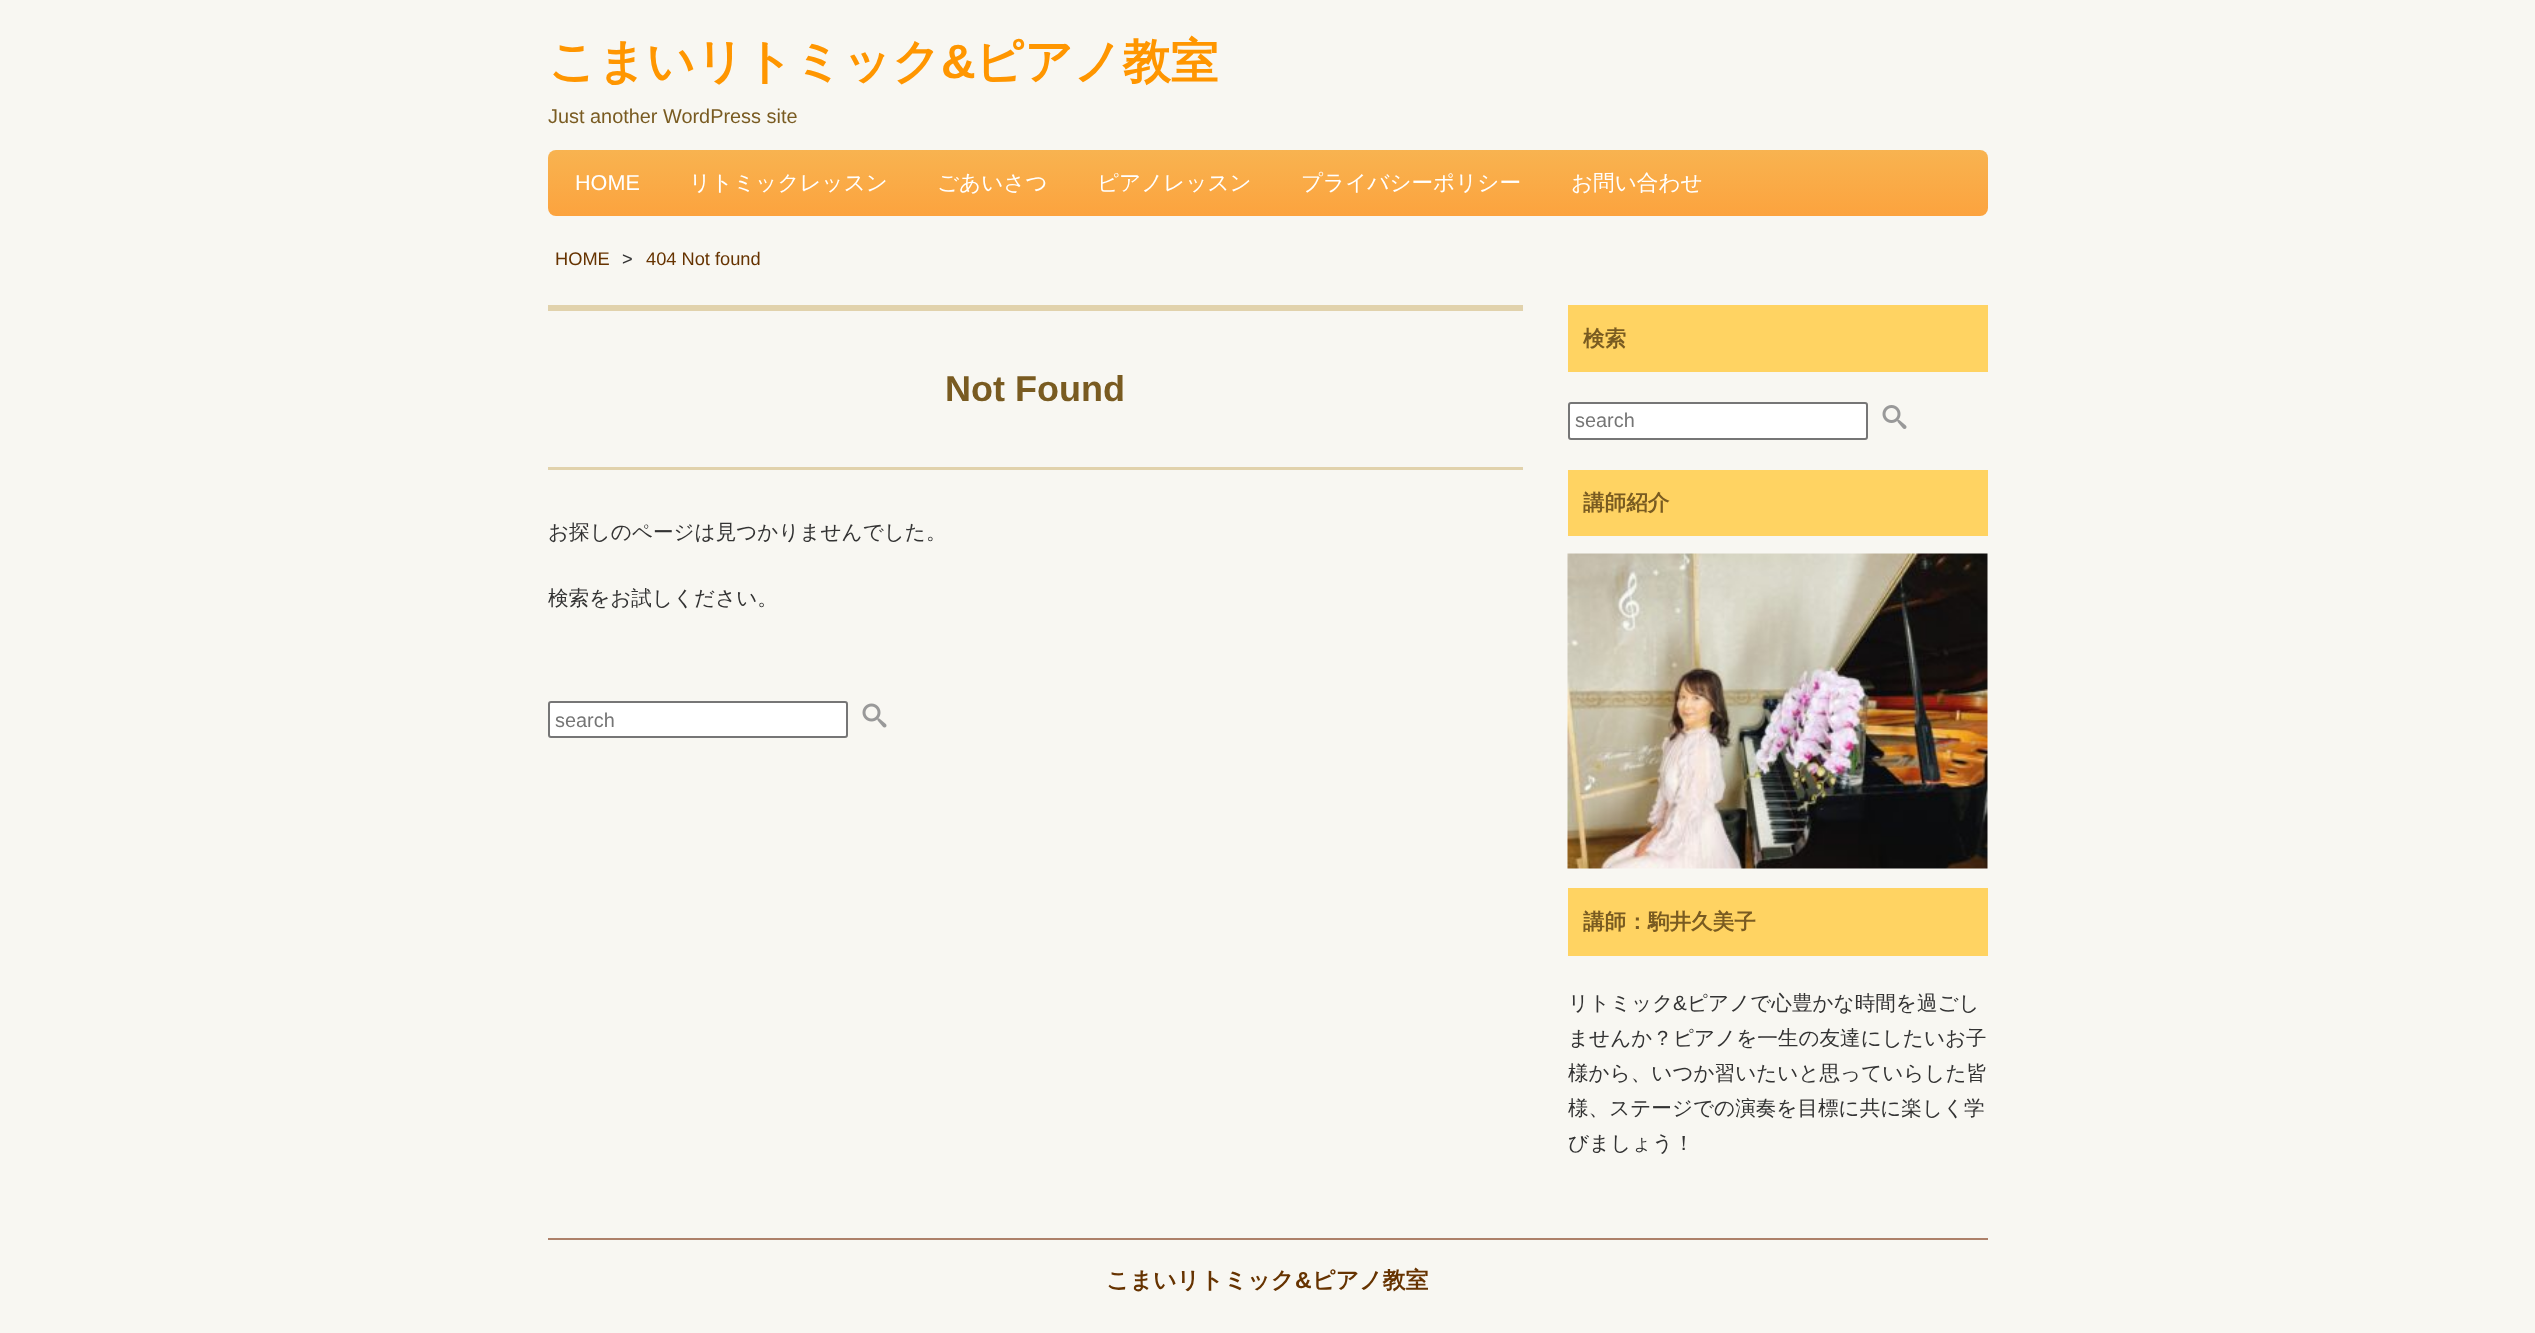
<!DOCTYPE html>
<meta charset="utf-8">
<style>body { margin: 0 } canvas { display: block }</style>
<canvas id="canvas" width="2535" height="1333"></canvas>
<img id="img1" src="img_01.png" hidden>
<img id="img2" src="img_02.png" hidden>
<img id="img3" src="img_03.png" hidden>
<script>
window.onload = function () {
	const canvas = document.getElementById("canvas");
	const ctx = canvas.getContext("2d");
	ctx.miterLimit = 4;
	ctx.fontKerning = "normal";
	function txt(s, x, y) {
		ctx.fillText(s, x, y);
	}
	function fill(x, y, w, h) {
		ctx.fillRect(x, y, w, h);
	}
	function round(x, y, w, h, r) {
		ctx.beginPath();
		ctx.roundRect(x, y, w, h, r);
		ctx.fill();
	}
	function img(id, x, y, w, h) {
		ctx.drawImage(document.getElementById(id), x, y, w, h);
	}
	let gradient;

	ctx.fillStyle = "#F8F7F2";
	fill(0, 0, 2535, 1333);
	gradient = ctx.createLinearGradient(1268, 150, 1268, 216);
	gradient.addColorStop(0, "#F8B350");
	gradient.addColorStop(1, "#FCA33E");
	ctx.fillStyle = gradient;
	round(548, 150, 1440, 66, 8);
	ctx.fillStyle = "#E1D2AC";
	fill(548, 305, 975, 6);
	fill(548, 467, 975, 3);
	ctx.fillStyle = "#FFFFFF";
	ctx.beginPath();
	ctx.roundRect(549, 702, 298, 35, 2);
	ctx.fill();
	ctx.strokeStyle = "#767676";
	ctx.lineWidth = 2;
	ctx.stroke();
	img("img1", 862, 703, 25, 25);
	ctx.fillStyle = "#FFD362";
	fill(1568, 305, 420, 67);
	ctx.fillStyle = "#FFFFFF";
	ctx.beginPath();
	ctx.roundRect(1569, 403, 298, 36, 2);
	ctx.fill();
	ctx.stroke();
	img("img2", 1882, 405, 25, 24);
	ctx.fillStyle = "#FFD362";
	fill(1568, 470, 420, 66);
	img("img3", 1567, 553, 421, 316);
	fill(1568, 888, 420, 68);
	ctx.fillStyle = "#AD816A";
	fill(548, 1238, 1440, 2);
	ctx.font = "bold 48px WenQuanYi Zen Hei";
	ctx.fillStyle = "#FF9600";
	txt("こまいリトミック", 548, 78);
	ctx.font = "bold 48px Liberation Sans";
	txt("&", 941, 78);
	ctx.font = "bold 48px WenQuanYi Zen Hei";
	txt("ピアノ教室", 975, 78);
	ctx.font = "19.9px Liberation Sans";
	ctx.fillStyle = "#795B21";
	txt("Just another WordPress site", 548, 123);
	ctx.font = "21.6px Liberation Sans";
	ctx.fillStyle = "#FFFFFF";
	txt("HOME", 575, 190);
	ctx.font = "500 21.6px WenQuanYi Zen Hei";
	txt("リトミックレッスン", 689, 190);
	txt("ごあいさつ", 937, 190);
	txt("ピアノレッスン", 1097, 190);
	txt("プライバシーポリシー", 1301, 190);
	txt("お問い合わせ", 1571, 190);
	ctx.font = "18.25px Liberation Sans";
	ctx.fillStyle = "#663300";
	txt("HOME", 555, 265);
	ctx.fillStyle = "#333333";
	txt(">", 622, 265);
	ctx.fillStyle = "#663300";
	txt("404 Not found", 646, 265);
	ctx.font = "bold 36px Liberation Sans";
	ctx.fillStyle = "#795B21";
	txt("Not Found", 945, 401);
	ctx.font = "500 20.6px WenQuanYi Zen Hei";
	ctx.fillStyle = "#333333";
	txt("お探しのページは見つかりませんでした。", 548, 539);
	txt("検索をお試しください。", 548, 605);
	ctx.font = "19.9px Liberation Sans";
	ctx.fillStyle = "#757575";
	txt("search", 555, 727);
	ctx.font = "bold 21.6px WenQuanYi Zen Hei";
	ctx.fillStyle = "#795B21";
	txt("検索", 1583, 346);
	ctx.font = "19.9px Liberation Sans";
	ctx.fillStyle = "#757575";
	txt("search", 1575, 427);
	ctx.font = "bold 21.6px WenQuanYi Zen Hei";
	ctx.fillStyle = "#795B21";
	txt("講師紹介", 1583, 510);
	txt("講師：駒井久美子", 1583, 929);
	ctx.font = "500 20.6px WenQuanYi Zen Hei";
	ctx.fillStyle = "#333333";
	txt("リトミック", 1568, 1010);
	ctx.font = "20.6px Liberation Sans";
	txt("&", 1673, 1010);
	ctx.font = "500 20.6px WenQuanYi Zen Hei";
	txt("ピアノで心豊かな時間を過ごし", 1687, 1010);
	txt("ませんか？ピアノを一生の友達にしたいお子", 1568, 1045);
	txt("様から、いつか習いたいと思っていらした皆", 1568, 1080);
	txt("様、ステージでの演奏を目標に共に楽しく学", 1568, 1115);
	txt("びましょう！", 1568, 1150);
	ctx.font = "bold 23px WenQuanYi Zen Hei";
	ctx.fillStyle = "#663300";
	txt("こまいリトミック", 1106, 1288);
	ctx.font = "bold 23px Liberation Sans";
	txt("&", 1295, 1288);
	ctx.font = "bold 23px WenQuanYi Zen Hei";
	txt("ピアノ教室", 1312, 1288);
};
</script>
